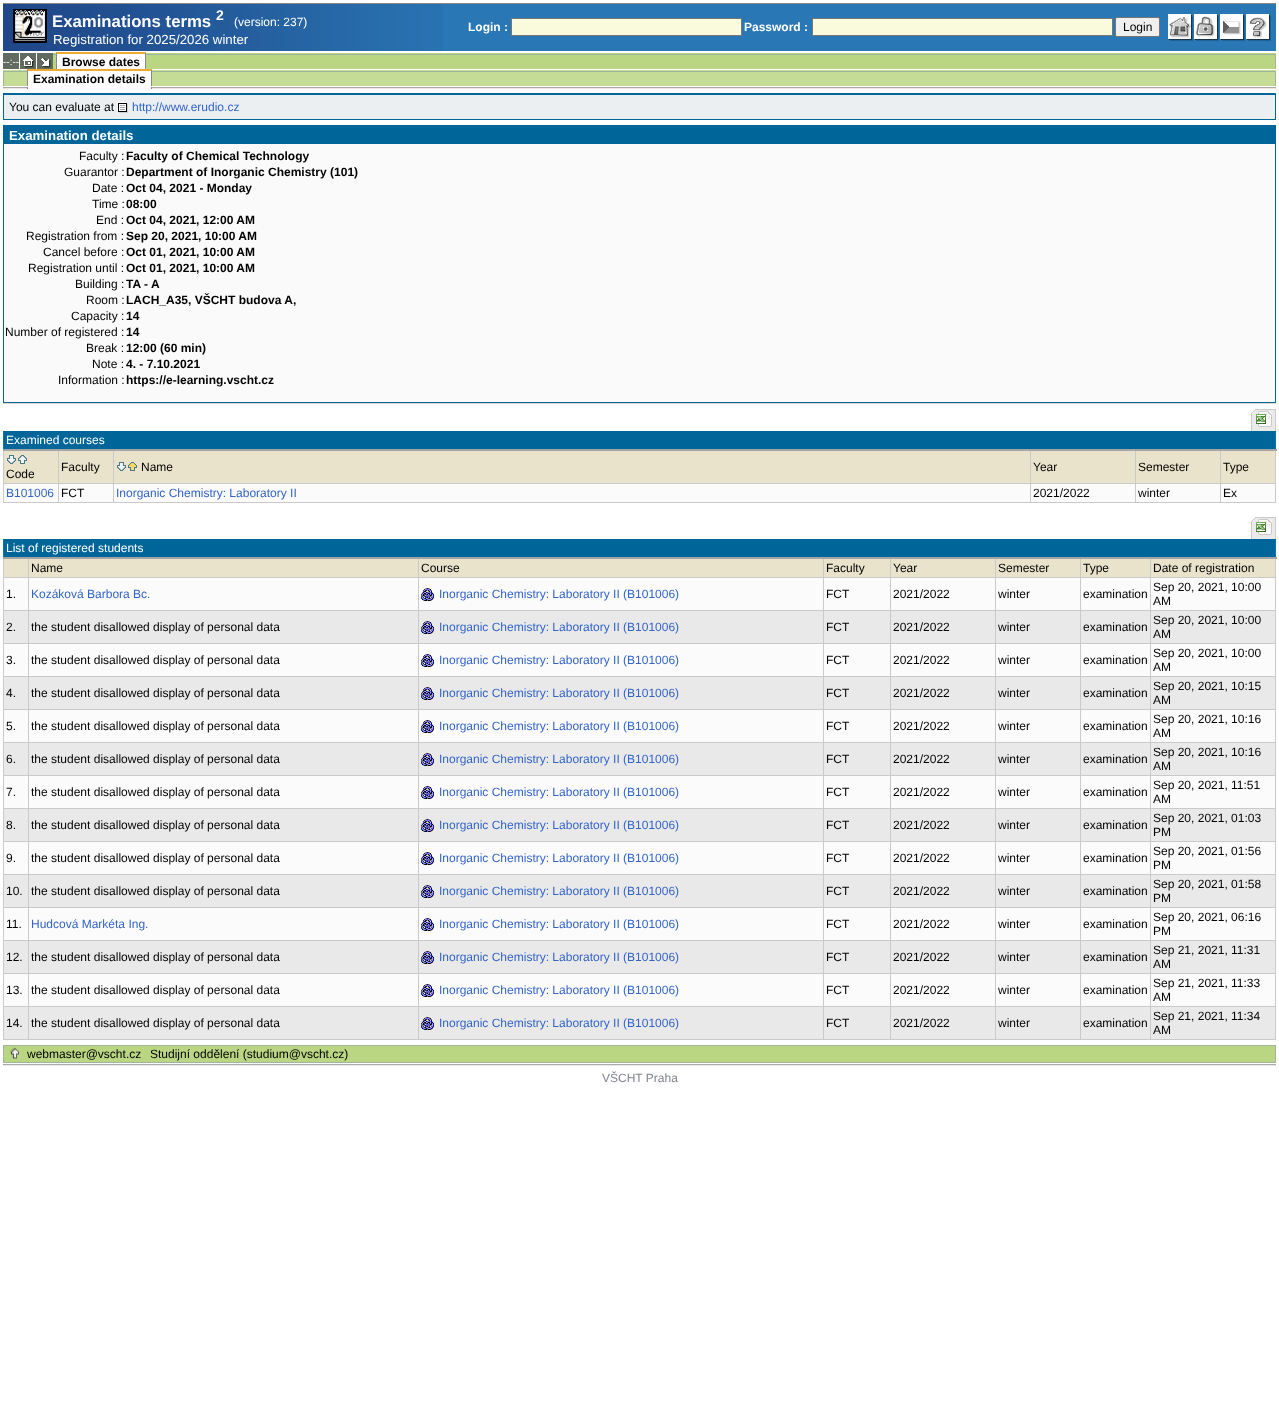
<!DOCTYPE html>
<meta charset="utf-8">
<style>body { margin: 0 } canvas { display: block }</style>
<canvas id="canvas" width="1279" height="1409"></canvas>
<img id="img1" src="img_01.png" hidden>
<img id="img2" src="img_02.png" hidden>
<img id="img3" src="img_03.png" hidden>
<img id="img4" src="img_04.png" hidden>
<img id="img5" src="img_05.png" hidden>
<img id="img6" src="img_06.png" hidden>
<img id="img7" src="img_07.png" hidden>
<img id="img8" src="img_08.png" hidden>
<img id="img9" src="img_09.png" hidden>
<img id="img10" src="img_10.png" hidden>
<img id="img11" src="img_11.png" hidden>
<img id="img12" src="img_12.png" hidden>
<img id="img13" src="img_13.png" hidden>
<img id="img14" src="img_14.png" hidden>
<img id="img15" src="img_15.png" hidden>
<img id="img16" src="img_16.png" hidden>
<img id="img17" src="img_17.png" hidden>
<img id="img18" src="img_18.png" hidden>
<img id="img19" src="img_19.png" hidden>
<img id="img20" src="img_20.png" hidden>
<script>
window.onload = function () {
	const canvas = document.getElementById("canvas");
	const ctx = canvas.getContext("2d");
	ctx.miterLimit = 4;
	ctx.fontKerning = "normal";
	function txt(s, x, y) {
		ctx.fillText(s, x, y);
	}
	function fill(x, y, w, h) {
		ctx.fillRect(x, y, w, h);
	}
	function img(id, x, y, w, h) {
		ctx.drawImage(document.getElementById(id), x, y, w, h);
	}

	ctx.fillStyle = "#FFFFFF";
	fill(0, 0, 1279, 1409);
	ctx.fillStyle = "#2A77B5";
	fill(443, 4, 833, 47);
	img("img1", 3, 4, 440, 47);
	ctx.fillStyle = "#888888";
	fill(3, 3, 1273, 1);
	ctx.strokeStyle = "#000000";
	ctx.strokeRect(13.5, 9.5, 33, 33);
	img("img2", 14, 10, 32, 32);
	ctx.fillStyle = "#FAFADC";
	ctx.beginPath();
	ctx.rect(511.5, 18.5, 230, 17);
	ctx.fill();
	ctx.strokeStyle = "#777777";
	ctx.stroke();
	ctx.beginPath();
	ctx.rect(812.5, 18.5, 300, 17);
	ctx.fill();
	ctx.stroke();
	ctx.fillStyle = "#EFEFEF";
	ctx.beginPath();
	ctx.roundRect(1115.5, 17.5, 44, 19, 1.5);
	ctx.fill();
	ctx.strokeStyle = "#767676";
	ctx.stroke();
	img("img3", 1168, 14, 25, 27);
	img("img4", 1194, 14, 25, 27);
	img("img5", 1220, 14, 25, 27);
	img("img6", 1246, 14, 25, 27);
	ctx.fillStyle = "#BAD683";
	fill(53, 52, 1223, 17);
	ctx.fillStyle = "#616B60";
	fill(3, 53, 16, 16);
	fill(20, 53, 16, 16);
	img("img7", 23, 56, 12, 12);
	fill(37, 53, 16, 16);
	img("img8", 41, 58, 10, 10);
	ctx.fillStyle = "#FFFFFF";
	fill(53, 52, 3, 1);
	ctx.fillStyle = "#9EB69B";
	fill(53, 54, 3, 1);
	ctx.fillStyle = "#F2A92F";
	ctx.beginPath();
	ctx.moveTo(56, 52);
	ctx.lineTo(146, 52);
	ctx.lineTo(145, 54);
	ctx.lineTo(57, 54);
	ctx.closePath();
	ctx.fill();
	ctx.fillStyle = "#888888";
	ctx.beginPath();
	ctx.moveTo(146, 52);
	ctx.lineTo(146, 69);
	ctx.lineTo(145, 69);
	ctx.lineTo(145, 54);
	ctx.closePath();
	ctx.fill();
	ctx.beginPath();
	ctx.moveTo(56, 69);
	ctx.lineTo(56, 52);
	ctx.lineTo(57, 54);
	ctx.lineTo(57, 69);
	ctx.closePath();
	ctx.fill();
	ctx.fillStyle = "#FFFFFF";
	fill(57, 54, 88, 15);
	fill(146, 52, 1130, 1);
	ctx.fillStyle = "#9EB69B";
	fill(146, 54, 1130, 1);
	fill(1275, 54, 1, 15);
	ctx.fillStyle = "#C4DC95";
	fill(3, 69, 1273, 17);
	ctx.fillStyle = "#FFFFFF";
	fill(3, 69, 24, 1);
	ctx.fillStyle = "#9EB69B";
	fill(3, 71, 24, 1);
	fill(3, 71, 1, 15);
	ctx.fillStyle = "#F2A92F";
	ctx.beginPath();
	ctx.moveTo(27, 69);
	ctx.lineTo(152, 69);
	ctx.lineTo(151, 71);
	ctx.lineTo(28, 71);
	ctx.closePath();
	ctx.fill();
	ctx.fillStyle = "#888888";
	ctx.beginPath();
	ctx.moveTo(152, 69);
	ctx.lineTo(152, 86);
	ctx.lineTo(151, 86);
	ctx.lineTo(151, 71);
	ctx.closePath();
	ctx.fill();
	ctx.beginPath();
	ctx.moveTo(27, 86);
	ctx.lineTo(27, 69);
	ctx.lineTo(28, 71);
	ctx.lineTo(28, 86);
	ctx.closePath();
	ctx.fill();
	ctx.fillStyle = "#FFFFFF";
	fill(28, 71, 123, 15);
	fill(152, 69, 1124, 1);
	ctx.fillStyle = "#9EB69B";
	fill(152, 71, 1124, 1);
	fill(1275, 71, 1, 15);
	img("img9", 3, 87, 24, 2);
	ctx.fillStyle = "#888888";
	fill(151, 87, 1, 2);
	fill(27, 87, 1, 2);
	img("img10", 152, 87, 1124, 2);
	ctx.fillStyle = "#ECEFF1";
	fill(4, 95, 1271, 24);
	ctx.fillStyle = "#006699";
	fill(3, 93, 1273, 2);
	fill(1275, 93, 1, 27);
	fill(3, 119, 1273, 1);
	fill(3, 93, 1, 27);
	img("img11", 117, 102, 11, 11);
	ctx.fillStyle = "#FAFAFA";
	fill(4, 144, 1271, 258);
	ctx.fillStyle = "#006699";
	fill(3, 125, 1273, 2);
	fill(1275, 125, 1, 278);
	fill(3, 402, 1273, 1);
	fill(3, 125, 1, 278);
	fill(4, 127, 1271, 17);
	ctx.fillStyle = "#DADADA";
	fill(3, 403, 1273, 1);
	img("img12", 1251, 410, 4, 21);
	ctx.fillStyle = "#EAEAEA";
	fill(1255, 410, 20, 21);
	ctx.fillStyle = "#CACACA";
	fill(1255, 409, 21, 1);
	fill(1275, 409, 1, 22);
	img("img13", 1256, 411, 16, 16);
	ctx.fillStyle = "#006699";
	fill(4, 431, 1271, 18);
	ctx.fillStyle = "#CACACA";
	fill(3, 483, 1273, 1);
	fill(1275, 450, 1, 53);
	ctx.fillStyle = "#0077AA";
	fill(1275, 431, 1, 20);
	ctx.fillStyle = "#CACACA";
	fill(3, 502, 1273, 1);
	fill(3, 450, 1, 53);
	ctx.fillStyle = "#0077AA";
	fill(3, 431, 1, 20);
	ctx.fillStyle = "#EAE3CC";
	fill(4, 451, 1271, 32);
	ctx.fillStyle = "#FBFBFB";
	fill(4, 484, 1271, 18);
	ctx.fillStyle = "#CACACA";
	fill(58, 450, 1, 53);
	fill(113, 450, 1, 53);
	fill(1030, 450, 1, 53);
	fill(1135, 450, 1, 53);
	fill(1220, 450, 1, 53);
	ctx.fillStyle = "#A5A5A5";
	fill(3, 449, 1274, 2);
	img("img14", 7, 455, 9, 9);
	img("img15", 18, 455, 9, 9);
	img("img14", 117, 462, 9, 9);
	img("img16", 128, 462, 9, 9);
	img("img12", 1251, 518, 4, 21);
	ctx.fillStyle = "#EAEAEA";
	fill(1255, 518, 20, 21);
	ctx.fillStyle = "#CACACA";
	fill(1255, 517, 21, 1);
	fill(1275, 517, 1, 22);
	img("img13", 1256, 519, 16, 16);
	ctx.fillStyle = "#006699";
	fill(4, 539, 1271, 18);
	ctx.fillStyle = "#CACACA";
	fill(3, 577, 1273, 1);
	fill(3, 610, 1273, 1);
	fill(3, 643, 1273, 1);
	fill(3, 676, 1273, 1);
	fill(3, 709, 1273, 1);
	fill(3, 742, 1273, 1);
	fill(3, 775, 1273, 1);
	fill(3, 808, 1273, 1);
	fill(3, 841, 1273, 1);
	fill(3, 874, 1273, 1);
	fill(3, 907, 1273, 1);
	fill(3, 940, 1273, 1);
	fill(3, 973, 1273, 1);
	fill(3, 1006, 1273, 1);
	fill(1275, 1006, 1, 34);
	fill(1275, 973, 1, 34);
	fill(1275, 940, 1, 34);
	fill(1275, 907, 1, 34);
	fill(1275, 874, 1, 34);
	fill(1275, 841, 1, 34);
	fill(1275, 808, 1, 34);
	fill(1275, 775, 1, 34);
	fill(1275, 742, 1, 34);
	fill(1275, 709, 1, 34);
	fill(1275, 676, 1, 34);
	fill(1275, 643, 1, 34);
	fill(1275, 610, 1, 34);
	fill(1275, 558, 1, 53);
	ctx.fillStyle = "#0077AA";
	fill(1275, 539, 1, 20);
	ctx.fillStyle = "#CACACA";
	fill(3, 1039, 1273, 1);
	fill(3, 1006, 1, 34);
	fill(3, 973, 1, 34);
	fill(3, 940, 1, 34);
	fill(3, 907, 1, 34);
	fill(3, 874, 1, 34);
	fill(3, 841, 1, 34);
	fill(3, 808, 1, 34);
	fill(3, 775, 1, 34);
	fill(3, 742, 1, 34);
	fill(3, 709, 1, 34);
	fill(3, 676, 1, 34);
	fill(3, 643, 1, 34);
	fill(3, 610, 1, 34);
	fill(3, 558, 1, 53);
	ctx.fillStyle = "#0077AA";
	fill(3, 539, 1, 20);
	ctx.fillStyle = "#EAE3CC";
	fill(4, 559, 1271, 18);
	ctx.fillStyle = "#FBFBFB";
	fill(4, 578, 1271, 32);
	ctx.fillStyle = "#E9E9E9";
	fill(4, 611, 1271, 32);
	ctx.fillStyle = "#FBFBFB";
	fill(4, 644, 1271, 32);
	ctx.fillStyle = "#E9E9E9";
	fill(4, 677, 1271, 32);
	ctx.fillStyle = "#FBFBFB";
	fill(4, 710, 1271, 32);
	ctx.fillStyle = "#E9E9E9";
	fill(4, 743, 1271, 32);
	ctx.fillStyle = "#FBFBFB";
	fill(4, 776, 1271, 32);
	ctx.fillStyle = "#E9E9E9";
	fill(4, 809, 1271, 32);
	ctx.fillStyle = "#FBFBFB";
	fill(4, 842, 1271, 32);
	ctx.fillStyle = "#E9E9E9";
	fill(4, 875, 1271, 32);
	ctx.fillStyle = "#FBFBFB";
	fill(4, 908, 1271, 32);
	ctx.fillStyle = "#E9E9E9";
	fill(4, 941, 1271, 32);
	ctx.fillStyle = "#FBFBFB";
	fill(4, 974, 1271, 32);
	ctx.fillStyle = "#E9E9E9";
	fill(4, 1007, 1271, 32);
	ctx.fillStyle = "#CACACA";
	fill(28, 558, 1, 482);
	fill(418, 558, 1, 482);
	fill(823, 558, 1, 482);
	fill(890, 558, 1, 482);
	fill(995, 558, 1, 482);
	fill(1080, 558, 1, 482);
	fill(1150, 558, 1, 482);
	ctx.fillStyle = "#A5A5A5";
	fill(3, 557, 1274, 2);
	img("img17", 421, 588, 13, 13);
	img("img18", 421, 621, 13, 13);
	img("img17", 421, 654, 13, 13);
	img("img18", 421, 687, 13, 13);
	img("img17", 421, 720, 13, 13);
	img("img18", 421, 753, 13, 13);
	img("img17", 421, 786, 13, 13);
	img("img18", 421, 819, 13, 13);
	img("img17", 421, 852, 13, 13);
	img("img18", 421, 885, 13, 13);
	img("img17", 421, 918, 13, 13);
	img("img18", 421, 951, 13, 13);
	img("img17", 421, 984, 13, 13);
	img("img18", 421, 1017, 13, 13);
	ctx.strokeStyle = "#9EB69B";
	ctx.strokeRect(3.5, 1045.5, 1272, 17);
	ctx.fillStyle = "#BAD683";
	fill(4, 1046, 1271, 16);
	img("img19", 9, 1047, 10, 12);
	img("img20", 3, 1064, 1273, 2);
	ctx.font = "bold 16.75px Liberation Sans";
	ctx.fillStyle = "#FFFFFF";
	txt("Examinations terms", 52, 27);
	ctx.font = "bold 14px Liberation Sans";
	txt("2", 216, 20);
	ctx.font = "12px Liberation Sans";
	txt("(version: 237)", 234, 26);
	ctx.font = "13.25px Liberation Sans";
	txt("Registration for 2025/2026 winter", 53, 44);
	ctx.font = "bold 12px Liberation Sans";
	txt("Login :", 468, 31);
	txt("Password :", 744, 31);
	ctx.font = "12px Liberation Sans";
	ctx.fillStyle = "#000000";
	txt("Login", 1123, 31);
	ctx.font = "10px Liberation Sans";
	ctx.fillStyle = "#FFFFFF";
	txt("--:--", 3, 65);
	ctx.font = "bold 12px Liberation Sans";
	ctx.fillStyle = "#000000";
	txt("Browse dates", 62, 66);
	txt("Examination details", 33, 83);
	ctx.font = "12px Liberation Sans";
	txt("You can evaluate at", 9, 111);
	ctx.fillStyle = "#3364CA";
	txt("http://www.erudio.cz", 132, 111);
	ctx.font = "bold 13.25px Liberation Sans";
	ctx.fillStyle = "#FFFFFF";
	txt("Examination details", 9, 140);
	ctx.font = "12px Liberation Sans";
	ctx.fillStyle = "#000000";
	txt("Faculty :", 79, 160);
	ctx.font = "bold 12px Liberation Sans";
	txt("Faculty of Chemical Technology", 126, 160);
	ctx.font = "12px Liberation Sans";
	txt("Guarantor :", 64, 176);
	ctx.font = "bold 12px Liberation Sans";
	txt("Department of Inorganic Chemistry (101)", 126, 176);
	ctx.font = "12px Liberation Sans";
	txt("Date :", 92, 192);
	ctx.font = "bold 12px Liberation Sans";
	txt("Oct 04, 2021 - Monday", 126, 192);
	ctx.font = "12px Liberation Sans";
	txt("Time :", 92, 208);
	ctx.font = "bold 12px Liberation Sans";
	txt("08:00", 126, 208);
	ctx.font = "12px Liberation Sans";
	txt("End :", 96, 224);
	ctx.font = "bold 12px Liberation Sans";
	txt("Oct 04, 2021, 12:00 AM", 126, 224);
	ctx.font = "12px Liberation Sans";
	txt("Registration from :", 26, 240);
	ctx.font = "bold 12px Liberation Sans";
	txt("Sep 20, 2021, 10:00 AM", 126, 240);
	ctx.font = "12px Liberation Sans";
	txt("Cancel before :", 43, 256);
	ctx.font = "bold 12px Liberation Sans";
	txt("Oct 01, 2021, 10:00 AM", 126, 256);
	ctx.font = "12px Liberation Sans";
	txt("Registration until :", 28, 272);
	ctx.font = "bold 12px Liberation Sans";
	txt("Oct 01, 2021, 10:00 AM", 126, 272);
	ctx.font = "12px Liberation Sans";
	txt("Building :", 75, 288);
	ctx.font = "bold 12px Liberation Sans";
	txt("TA - A", 126, 288);
	ctx.font = "12px Liberation Sans";
	txt("Room :", 86, 304);
	ctx.font = "bold 12px Liberation Sans";
	txt("LACH_A35, VŠCHT budova A,", 126, 304);
	ctx.font = "12px Liberation Sans";
	txt("Capacity :", 71, 320);
	ctx.font = "bold 12px Liberation Sans";
	txt("14", 126, 320);
	ctx.font = "12px Liberation Sans";
	txt("Number of registered :", 5, 336);
	ctx.font = "bold 12px Liberation Sans";
	txt("14", 126, 336);
	ctx.font = "12px Liberation Sans";
	txt("Break :", 86, 352);
	ctx.font = "bold 12px Liberation Sans";
	txt("12:00 (60 min)", 126, 352);
	ctx.font = "12px Liberation Sans";
	txt("Note :", 92, 368);
	ctx.font = "bold 12px Liberation Sans";
	txt("4. - 7.10.2021", 126, 368);
	ctx.font = "12px Liberation Sans";
	txt("Information :", 58, 384);
	ctx.font = "bold 12px Liberation Sans";
	txt("https://e-learning.vscht.cz", 126, 384);
	ctx.font = "12px Liberation Sans";
	ctx.fillStyle = "#FFFFFF";
	txt("Examined courses", 6, 444);
	ctx.fillStyle = "#000000";
	txt("Code", 6, 478);
	txt("Faculty", 61, 471);
	txt("Name", 141, 471);
	txt("Year", 1033, 471);
	txt("Semester", 1138, 471);
	txt("Type", 1223, 471);
	ctx.fillStyle = "#3364CA";
	txt("B101006", 6, 497);
	ctx.fillStyle = "#000000";
	txt("FCT", 61, 497);
	ctx.fillStyle = "#3364CA";
	txt("Inorganic Chemistry: Laboratory II", 116, 497);
	ctx.fillStyle = "#000000";
	txt("2021/2022", 1033, 497);
	txt("winter", 1138, 497);
	txt("Ex", 1223, 497);
	ctx.fillStyle = "#FFFFFF";
	txt("List of registered students", 6, 552);
	ctx.fillStyle = "#000000";
	txt("Name", 31, 572);
	txt("Course", 421, 572);
	txt("Faculty", 826, 572);
	txt("Year", 893, 572);
	txt("Semester", 998, 572);
	txt("Type", 1083, 572);
	txt("Date of registration", 1153, 572);
	txt("1.", 6, 598);
	ctx.fillStyle = "#3364CA";
	txt("Kozáková Barbora Bc.", 31, 598);
	txt("Inorganic Chemistry: Laboratory II (B101006)", 439, 598);
	ctx.fillStyle = "#000000";
	txt("FCT", 826, 598);
	txt("2021/2022", 893, 598);
	txt("winter", 998, 598);
	txt("examination", 1083, 598);
	txt("Sep 20, 2021, 10:00", 1153, 591);
	txt("AM", 1153, 605);
	txt("2.", 6, 631);
	txt("the student disallowed display of personal data", 31, 631);
	ctx.fillStyle = "#3364CA";
	txt("Inorganic Chemistry: Laboratory II (B101006)", 439, 631);
	ctx.fillStyle = "#000000";
	txt("FCT", 826, 631);
	txt("2021/2022", 893, 631);
	txt("winter", 998, 631);
	txt("examination", 1083, 631);
	txt("Sep 20, 2021, 10:00", 1153, 624);
	txt("AM", 1153, 638);
	txt("3.", 6, 664);
	txt("the student disallowed display of personal data", 31, 664);
	ctx.fillStyle = "#3364CA";
	txt("Inorganic Chemistry: Laboratory II (B101006)", 439, 664);
	ctx.fillStyle = "#000000";
	txt("FCT", 826, 664);
	txt("2021/2022", 893, 664);
	txt("winter", 998, 664);
	txt("examination", 1083, 664);
	txt("Sep 20, 2021, 10:00", 1153, 657);
	txt("AM", 1153, 671);
	txt("4.", 6, 697);
	txt("the student disallowed display of personal data", 31, 697);
	ctx.fillStyle = "#3364CA";
	txt("Inorganic Chemistry: Laboratory II (B101006)", 439, 697);
	ctx.fillStyle = "#000000";
	txt("FCT", 826, 697);
	txt("2021/2022", 893, 697);
	txt("winter", 998, 697);
	txt("examination", 1083, 697);
	txt("Sep 20, 2021, 10:15", 1153, 690);
	txt("AM", 1153, 704);
	txt("5.", 6, 730);
	txt("the student disallowed display of personal data", 31, 730);
	ctx.fillStyle = "#3364CA";
	txt("Inorganic Chemistry: Laboratory II (B101006)", 439, 730);
	ctx.fillStyle = "#000000";
	txt("FCT", 826, 730);
	txt("2021/2022", 893, 730);
	txt("winter", 998, 730);
	txt("examination", 1083, 730);
	txt("Sep 20, 2021, 10:16", 1153, 723);
	txt("AM", 1153, 737);
	txt("6.", 6, 763);
	txt("the student disallowed display of personal data", 31, 763);
	ctx.fillStyle = "#3364CA";
	txt("Inorganic Chemistry: Laboratory II (B101006)", 439, 763);
	ctx.fillStyle = "#000000";
	txt("FCT", 826, 763);
	txt("2021/2022", 893, 763);
	txt("winter", 998, 763);
	txt("examination", 1083, 763);
	txt("Sep 20, 2021, 10:16", 1153, 756);
	txt("AM", 1153, 770);
	txt("7.", 6, 796);
	txt("the student disallowed display of personal data", 31, 796);
	ctx.fillStyle = "#3364CA";
	txt("Inorganic Chemistry: Laboratory II (B101006)", 439, 796);
	ctx.fillStyle = "#000000";
	txt("FCT", 826, 796);
	txt("2021/2022", 893, 796);
	txt("winter", 998, 796);
	txt("examination", 1083, 796);
	txt("Sep 20, 2021, 11:51", 1153, 789);
	txt("AM", 1153, 803);
	txt("8.", 6, 829);
	txt("the student disallowed display of personal data", 31, 829);
	ctx.fillStyle = "#3364CA";
	txt("Inorganic Chemistry: Laboratory II (B101006)", 439, 829);
	ctx.fillStyle = "#000000";
	txt("FCT", 826, 829);
	txt("2021/2022", 893, 829);
	txt("winter", 998, 829);
	txt("examination", 1083, 829);
	txt("Sep 20, 2021, 01:03", 1153, 822);
	txt("PM", 1153, 836);
	txt("9.", 6, 862);
	txt("the student disallowed display of personal data", 31, 862);
	ctx.fillStyle = "#3364CA";
	txt("Inorganic Chemistry: Laboratory II (B101006)", 439, 862);
	ctx.fillStyle = "#000000";
	txt("FCT", 826, 862);
	txt("2021/2022", 893, 862);
	txt("winter", 998, 862);
	txt("examination", 1083, 862);
	txt("Sep 20, 2021, 01:56", 1153, 855);
	txt("PM", 1153, 869);
	txt("10.", 6, 895);
	txt("the student disallowed display of personal data", 31, 895);
	ctx.fillStyle = "#3364CA";
	txt("Inorganic Chemistry: Laboratory II (B101006)", 439, 895);
	ctx.fillStyle = "#000000";
	txt("FCT", 826, 895);
	txt("2021/2022", 893, 895);
	txt("winter", 998, 895);
	txt("examination", 1083, 895);
	txt("Sep 20, 2021, 01:58", 1153, 888);
	txt("PM", 1153, 902);
	txt("11.", 6, 928);
	ctx.fillStyle = "#3364CA";
	txt("Hudcová Markéta Ing.", 31, 928);
	txt("Inorganic Chemistry: Laboratory II (B101006)", 439, 928);
	ctx.fillStyle = "#000000";
	txt("FCT", 826, 928);
	txt("2021/2022", 893, 928);
	txt("winter", 998, 928);
	txt("examination", 1083, 928);
	txt("Sep 20, 2021, 06:16", 1153, 921);
	txt("PM", 1153, 935);
	txt("12.", 6, 961);
	txt("the student disallowed display of personal data", 31, 961);
	ctx.fillStyle = "#3364CA";
	txt("Inorganic Chemistry: Laboratory II (B101006)", 439, 961);
	ctx.fillStyle = "#000000";
	txt("FCT", 826, 961);
	txt("2021/2022", 893, 961);
	txt("winter", 998, 961);
	txt("examination", 1083, 961);
	txt("Sep 21, 2021, 11:31", 1153, 954);
	txt("AM", 1153, 968);
	txt("13.", 6, 994);
	txt("the student disallowed display of personal data", 31, 994);
	ctx.fillStyle = "#3364CA";
	txt("Inorganic Chemistry: Laboratory II (B101006)", 439, 994);
	ctx.fillStyle = "#000000";
	txt("FCT", 826, 994);
	txt("2021/2022", 893, 994);
	txt("winter", 998, 994);
	txt("examination", 1083, 994);
	txt("Sep 21, 2021, 11:33", 1153, 987);
	txt("AM", 1153, 1001);
	txt("14.", 6, 1027);
	txt("the student disallowed display of personal data", 31, 1027);
	ctx.fillStyle = "#3364CA";
	txt("Inorganic Chemistry: Laboratory II (B101006)", 439, 1027);
	ctx.fillStyle = "#000000";
	txt("FCT", 826, 1027);
	txt("2021/2022", 893, 1027);
	txt("winter", 998, 1027);
	txt("examination", 1083, 1027);
	txt("Sep 21, 2021, 11:34", 1153, 1020);
	txt("AM", 1153, 1034);
	txt("webmaster@vscht.cz", 27, 1058);
	txt("Studijní oddělení (studium@vscht.cz)", 150, 1058);
	ctx.fillStyle = "#828490";
	txt("VŠCHT Praha", 602, 1082);
};
</script>
